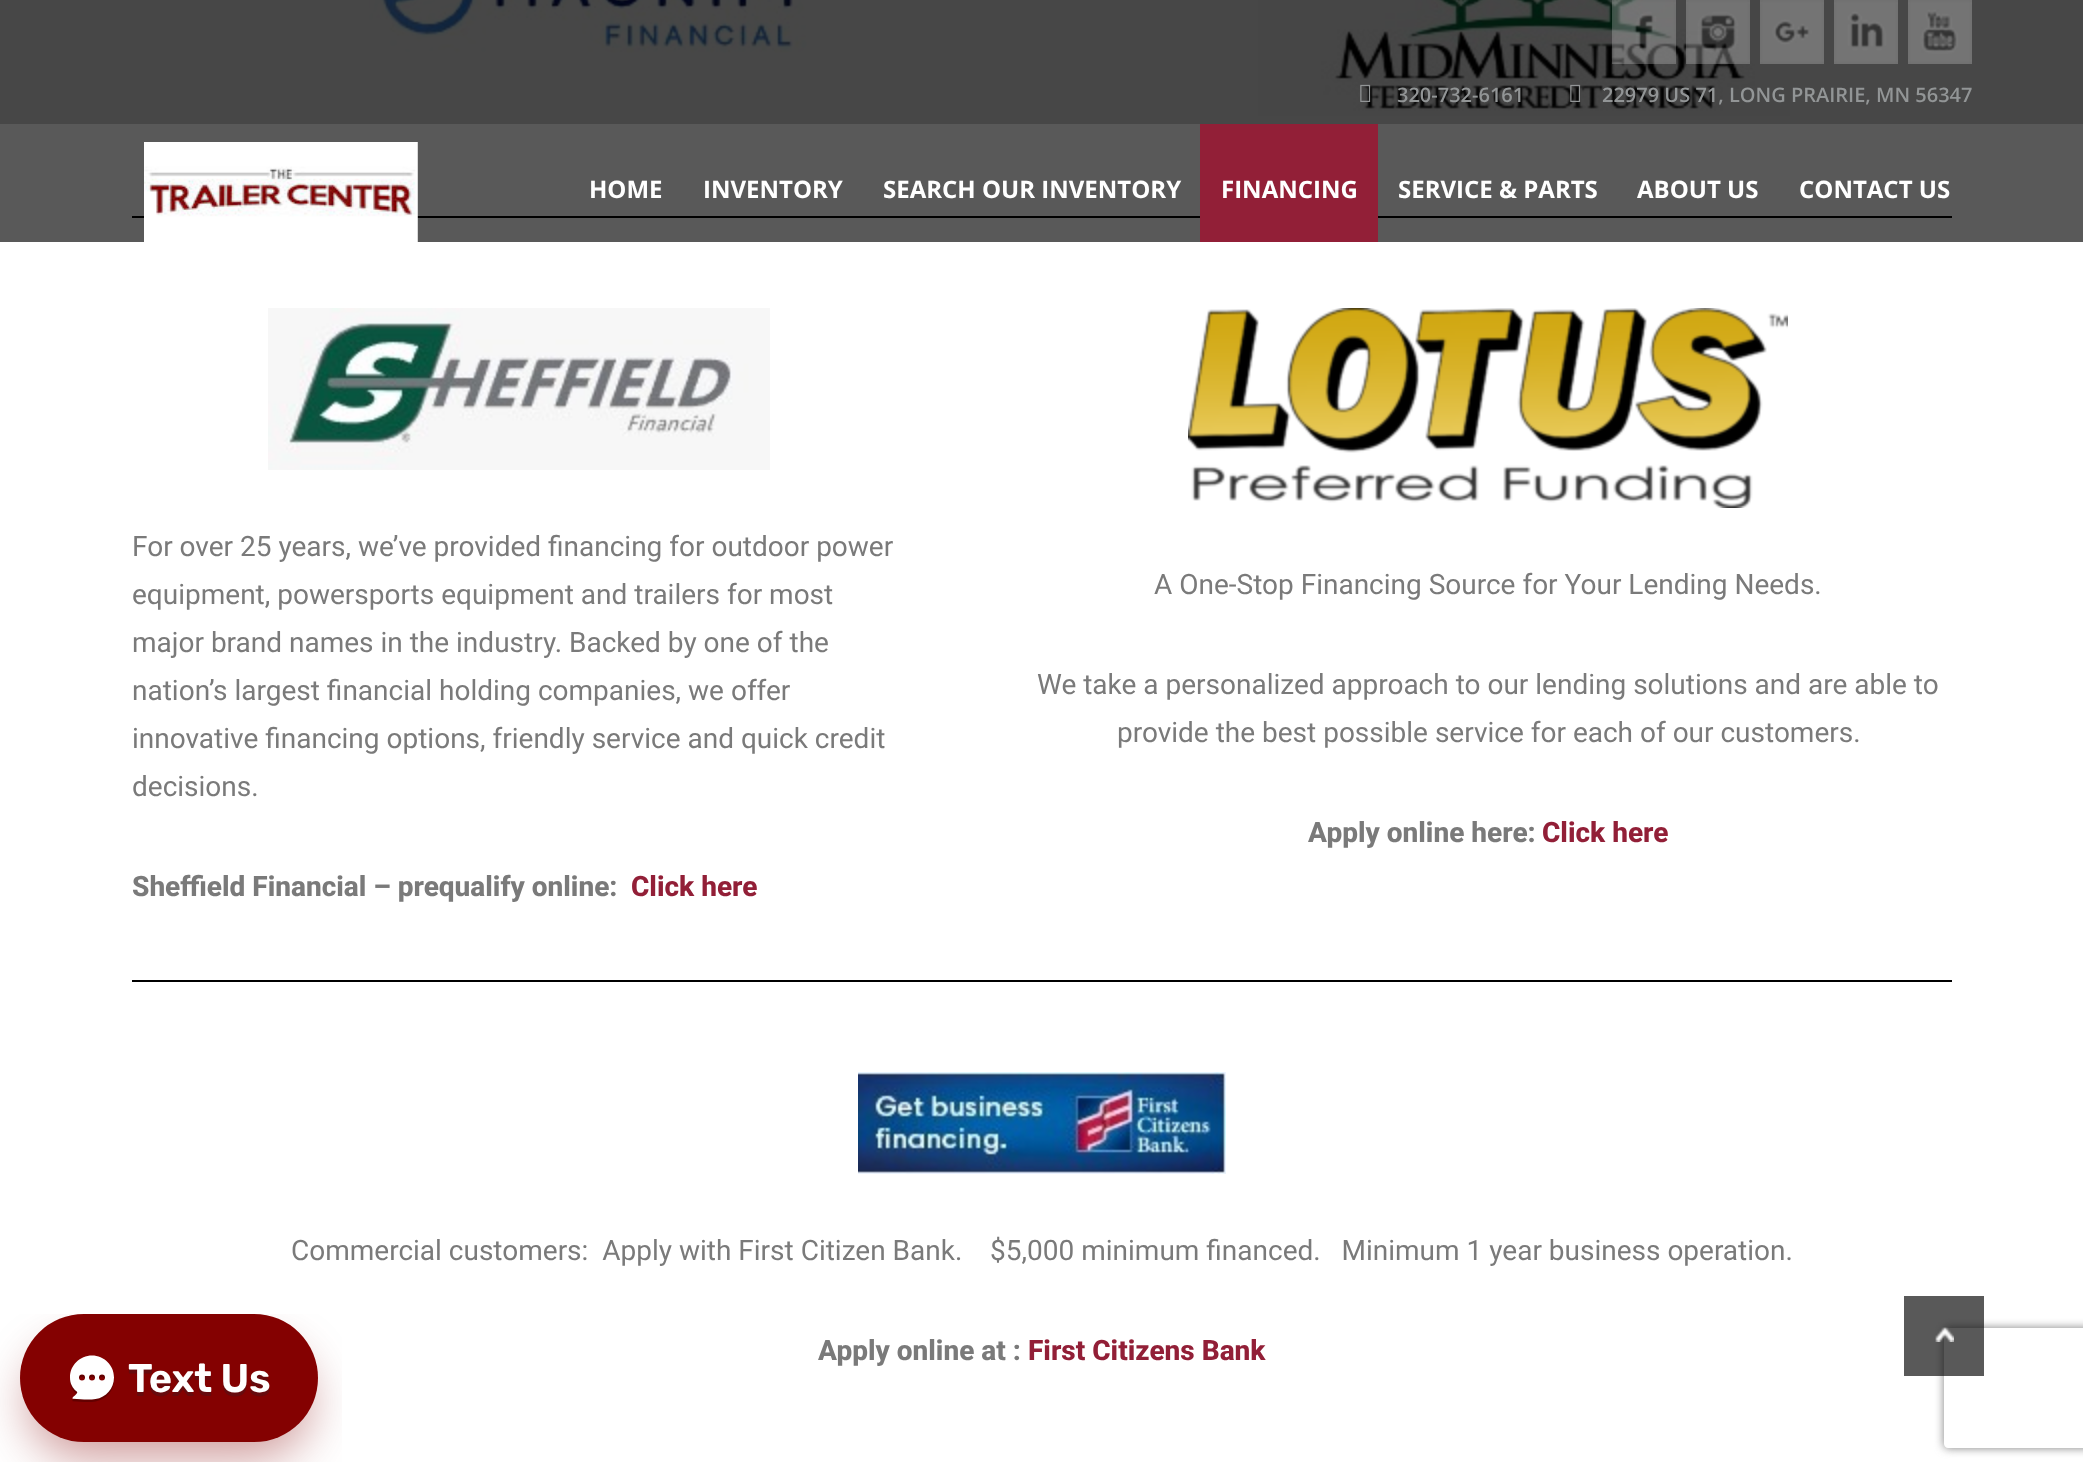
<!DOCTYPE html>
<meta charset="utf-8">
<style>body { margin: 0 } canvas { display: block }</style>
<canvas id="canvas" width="2083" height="1476"></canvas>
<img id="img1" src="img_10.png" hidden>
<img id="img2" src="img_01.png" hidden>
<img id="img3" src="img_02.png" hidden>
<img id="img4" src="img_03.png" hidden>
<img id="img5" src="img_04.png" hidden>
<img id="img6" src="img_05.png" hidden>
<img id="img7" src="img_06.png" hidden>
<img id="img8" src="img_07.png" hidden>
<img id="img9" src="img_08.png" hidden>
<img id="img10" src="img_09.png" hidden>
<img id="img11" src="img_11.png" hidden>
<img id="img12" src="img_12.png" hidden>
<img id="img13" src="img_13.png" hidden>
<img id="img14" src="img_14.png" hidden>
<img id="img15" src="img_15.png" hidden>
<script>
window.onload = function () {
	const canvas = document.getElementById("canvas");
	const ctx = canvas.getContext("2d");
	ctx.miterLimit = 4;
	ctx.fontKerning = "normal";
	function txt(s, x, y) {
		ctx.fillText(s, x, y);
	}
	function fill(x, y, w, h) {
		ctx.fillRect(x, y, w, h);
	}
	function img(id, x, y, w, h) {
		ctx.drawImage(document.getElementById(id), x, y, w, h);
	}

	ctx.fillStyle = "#FFFFFF";
	fill(0, 0, 2083, 1476);
	ctx.fillStyle = "#595959";
	fill(0, 124, 2083, 118);
	ctx.fillStyle = "#474747";
	fill(0, 0, 2083, 124);
	img("img1", 1258, 0, 532, 116);
	img("img2", 1612, 0, 64, 64);
	img("img3", 1686, 0, 64, 64);
	img("img4", 1760, 0, 64, 64);
	img("img5", 1834, 0, 64, 64);
	img("img6", 1908, 0, 64, 64);
	img("img7", 1360, 84, 11, 18);
	img("img8", 1570, 84, 11, 18);
	ctx.fillStyle = "#000000";
	fill(132, 216, 1820, 2);
	img("img9", 144, 142, 274, 100);
	ctx.fillStyle = "#921F37";
	fill(1200, 124, 178, 118);
	img("img10", 369, 0, 438, 53);
	img("img11", 268, 308, 502, 162);
	img("img12", 1188, 308, 600, 200);
	ctx.fillStyle = "#000000";
	fill(132, 980, 1820, 2);
	img("img13", 858, 1072, 368, 102);
	ctx.save();
	ctx.beginPath();
	ctx.moveTo(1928, 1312);
	ctx.lineTo(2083, 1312);
	ctx.lineTo(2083, 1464);
	ctx.lineTo(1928, 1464);
	ctx.closePath();
	ctx.moveTo(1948, 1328);
	ctx.lineTo(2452, 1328);
	ctx.bezierCurveTo(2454, 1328, 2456, 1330, 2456, 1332);
	ctx.lineTo(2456, 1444);
	ctx.bezierCurveTo(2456, 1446, 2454, 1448, 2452, 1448);
	ctx.lineTo(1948, 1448);
	ctx.bezierCurveTo(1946, 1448, 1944, 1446, 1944, 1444);
	ctx.lineTo(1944, 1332);
	ctx.bezierCurveTo(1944, 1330, 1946, 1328, 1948, 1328);
	ctx.closePath();
	ctx.clip("evenodd");
	ctx.fillStyle = "#808080";
	ctx.filter = "blur(5px)";
	ctx.beginPath();
	ctx.roundRect(1944, 1328, 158, 120, 4);
	ctx.fill();
	ctx.filter = "none";
	ctx.restore();
	ctx.fillStyle = "rgba(0, 0, 0, 0.65)";
	fill(1904, 1296, 80, 80);
	img("img14", 1935, 1327, 19, 15);
	img("img15", 0, 1314, 342, 148);
	ctx.font = "600 20px Open Sans";
	ctx.fillStyle = "#929596";
	txt("320-732-6161", 1397, 102);
	txt("22979 US 71, LONG PRAIRIE, MN 56347", 1602, 102);
	ctx.font = "bold 24px Open Sans";
	ctx.fillStyle = "#FFFFFF";
	txt("HOME", 589, 198);
	txt("INVENTORY", 703, 198);
	txt("SEARCH OUR INVENTORY", 883, 198);
	txt("FINANCING", 1221, 198);
	txt("SERVICE & PARTS", 1398, 198);
	txt("ABOUT US", 1637, 198);
	txt("CONTACT US", 1799, 198);
	ctx.font = "28px Roboto";
	ctx.fillStyle = "#7A7A7A";
	txt("For over 25 years, we’ve provided financing for outdoor power", 132, 556);
	txt("equipment, powersports equipment and trailers for most", 132, 604);
	txt("major brand names in the industry. Backed by one of the", 132, 652);
	txt("nation’s largest financial holding companies, we offer", 132, 700);
	txt("innovative financing options, friendly service and quick credit", 132, 748);
	txt("decisions.", 132, 796);
	ctx.font = "800 28px Roboto";
	txt("Sheffield Financial – prequalify online:", 132, 896);
	ctx.fillStyle = "#921F37";
	txt("Click here", 631, 896);
	ctx.font = "28px Roboto";
	ctx.fillStyle = "#7A7A7A";
	txt("A One-Stop Financing Source for Your Lending Needs.", 1154, 594);
	txt("We take a personalized approach to our lending solutions and are able to", 1037, 694);
	txt("provide the best possible service for each of our customers.", 1117, 742);
	ctx.font = "800 28px Roboto";
	txt("Apply online here:", 1308, 842);
	ctx.fillStyle = "#921F37";
	txt("Click here", 1542, 842);
	ctx.font = "28px Roboto";
	ctx.fillStyle = "#7A7A7A";
	txt("Commercial customers:  Apply with First Citizen Bank.    $5,000 minimum financed.   Minimum 1 year business operation.", 291, 1260);
	ctx.font = "800 28px Roboto";
	txt("Apply online at :", 818, 1360);
	ctx.fillStyle = "#921F37";
	txt("First Citizens Bank", 1028, 1360);
};
</script>
